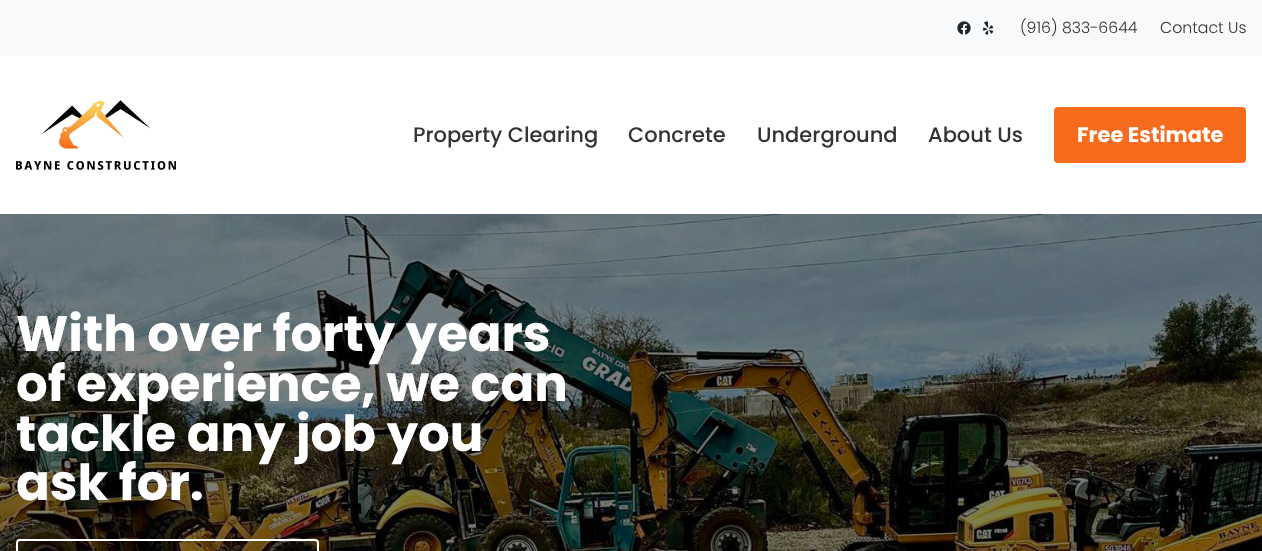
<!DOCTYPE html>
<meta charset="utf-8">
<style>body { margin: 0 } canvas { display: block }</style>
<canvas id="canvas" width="1262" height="551"></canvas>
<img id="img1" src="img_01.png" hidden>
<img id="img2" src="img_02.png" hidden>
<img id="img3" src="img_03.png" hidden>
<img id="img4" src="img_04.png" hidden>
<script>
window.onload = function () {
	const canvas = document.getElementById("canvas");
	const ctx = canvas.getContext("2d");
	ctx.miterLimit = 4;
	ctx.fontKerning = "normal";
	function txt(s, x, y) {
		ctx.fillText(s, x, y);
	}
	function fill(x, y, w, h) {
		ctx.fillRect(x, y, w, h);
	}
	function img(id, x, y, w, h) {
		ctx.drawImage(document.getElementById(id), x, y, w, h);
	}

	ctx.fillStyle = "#FFFFFF";
	fill(0, 0, 1262, 551);
	ctx.fillStyle = "#F8F9FA";
	fill(0, 0, 1262, 56);
	img("img1", 957, 21, 14, 14);
	img("img2", 983, 21, 11, 14);
	img("img3", 16, 100, 160, 70);
	ctx.fillStyle = "#F76B1C";
	ctx.beginPath();
	ctx.roundRect(1055, 108, 190, 54, 3);
	ctx.fill();
	ctx.strokeStyle = "#F76B1C";
	ctx.lineWidth = 2;
	ctx.stroke();
	img("img4", 0, 214, 1262, 337);
	ctx.beginPath();
	ctx.roundRect(17, 540, 301, 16, 3);
	ctx.strokeStyle = "#FFFFFF";
	ctx.stroke();
	ctx.font = "300 15.75px Poppins";
	ctx.fillStyle = "#333333";
	txt("(916) 833-6644", 1020, 33);
	txt("Contact Us", 1160, 33);
	ctx.font = "500 21px Poppins";
	txt("Property Clearing", 413, 142);
	txt("Concrete", 628, 142);
	txt("Underground", 757, 142);
	txt("About Us", 928, 142);
	ctx.font = "bold 21px Poppins";
	ctx.fillStyle = "#FFFFFF";
	txt("Free Estimate", 1077, 142);
	ctx.font = "bold 49.75px Poppins";
	txt("With over forty years", 16, 351);
	txt("of experience, we can", 16, 401);
	txt("tackle any job you", 16, 451);
	txt("ask for.", 16, 500);
};
</script>
